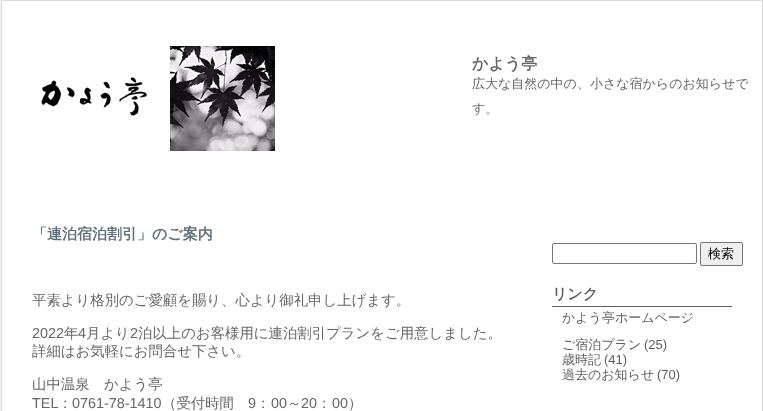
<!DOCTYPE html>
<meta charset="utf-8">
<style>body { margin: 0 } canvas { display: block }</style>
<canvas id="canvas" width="763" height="411"></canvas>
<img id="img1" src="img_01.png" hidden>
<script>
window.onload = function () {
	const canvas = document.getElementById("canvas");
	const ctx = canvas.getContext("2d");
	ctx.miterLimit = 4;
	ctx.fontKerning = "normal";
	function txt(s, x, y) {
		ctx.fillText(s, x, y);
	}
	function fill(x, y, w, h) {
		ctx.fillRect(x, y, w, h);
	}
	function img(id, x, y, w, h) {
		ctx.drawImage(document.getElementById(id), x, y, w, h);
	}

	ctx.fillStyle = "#F3F3F3";
	fill(0, 0, 763, 411);
	ctx.fillStyle = "#FFFFFF";
	ctx.beginPath();
	ctx.rect(1.5, 0.5, 761, 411);
	ctx.fill();
	ctx.strokeStyle = "#DCDCDC";
	ctx.stroke();
	img("img1", 41, 46, 367, 125);
	ctx.beginPath();
	ctx.roundRect(552.5, 243.5, 144, 20, 1.5);
	ctx.strokeStyle = "#767676";
	ctx.stroke();
	ctx.fillStyle = "#EFEFEF";
	ctx.beginPath();
	ctx.roundRect(700.5, 242.5, 42, 23, 1.5);
	ctx.fill();
	ctx.stroke();
	ctx.fillStyle = "#5F5F5F";
	fill(552, 306, 180, 1);
	ctx.font = "bold 16px WenQuanYi Zen Hei";
	ctx.fillStyle = "#666666";
	txt("かよう亭", 472, 69);
	ctx.font = "500 13px WenQuanYi Zen Hei";
	txt("広大な自然の中の、小さな宿からのお知らせで", 472, 88);
	txt("す。", 472, 113);
	ctx.font = "bold 15px WenQuanYi Zen Hei";
	ctx.fillStyle = "#5F707A";
	txt("「連泊宿泊割引」のご案内", 32, 239);
	ctx.font = "500 14.4px WenQuanYi Zen Hei";
	ctx.fillStyle = "#666666";
	txt("平素より格別のご愛顧を賜り、心より御礼申し上げます。", 32, 305);
	ctx.font = "14.4px Liberation Sans";
	txt("2022", 32, 338);
	ctx.font = "500 14.4px WenQuanYi Zen Hei";
	txt("年", 64, 338);
	ctx.font = "14.4px Liberation Sans";
	txt("4", 78, 338);
	ctx.font = "500 14.4px WenQuanYi Zen Hei";
	txt("月より", 86, 338);
	ctx.font = "14.4px Liberation Sans";
	txt("2", 130, 338);
	ctx.font = "500 14.4px WenQuanYi Zen Hei";
	txt("泊以上のお客様用に連泊割引プランをご用意しました。", 138, 338);
	txt("詳細はお気軽にお問合せ下さい。", 32, 356);
	txt("山中温泉　かよう亭", 32, 389);
	ctx.font = "14.4px Liberation Sans";
	txt("TEL", 32, 408);
	ctx.font = "500 14.4px WenQuanYi Zen Hei";
	txt("：", 58, 408);
	ctx.font = "14.4px Liberation Sans";
	txt("0761-78-1410", 72, 408);
	ctx.font = "500 14.4px WenQuanYi Zen Hei";
	txt("（受付時間", 162, 408);
	ctx.font = "14.4px Liberation Sans";
	txt("9", 248, 408);
	ctx.font = "500 14.4px WenQuanYi Zen Hei";
	txt("：", 256, 408);
	ctx.font = "14.4px Liberation Sans";
	txt("00", 271, 408);
	ctx.font = "500 14.4px WenQuanYi Zen Hei";
	txt("～", 287, 408);
	ctx.font = "14.4px Liberation Sans";
	txt("20", 301, 408);
	ctx.font = "500 14.4px WenQuanYi Zen Hei";
	txt("：", 317, 408);
	ctx.font = "14.4px Liberation Sans";
	txt("00", 332, 408);
	ctx.font = "500 14.4px WenQuanYi Zen Hei";
	txt("）", 348, 408);
	ctx.font = "500 13px WenQuanYi Zen Hei";
	ctx.fillStyle = "#000000";
	txt("検索", 708, 258);
	ctx.font = "bold 15px WenQuanYi Zen Hei";
	ctx.fillStyle = "#5F5F5F";
	txt("リンク", 552, 299);
	ctx.font = "500 13px WenQuanYi Zen Hei";
	txt("かよう亭ホームページ", 562, 322);
	txt("ご宿泊プラン", 562, 349);
	ctx.font = "13px Liberation Sans";
	txt("(25)", 644, 349);
	ctx.font = "500 13px WenQuanYi Zen Hei";
	txt("歳時記", 562, 364);
	ctx.font = "13px Liberation Sans";
	txt("(41)", 604, 364);
	ctx.font = "500 13px WenQuanYi Zen Hei";
	txt("過去のお知らせ", 562, 379);
	ctx.font = "13px Liberation Sans";
	txt("(70)", 657, 379);
};
</script>
